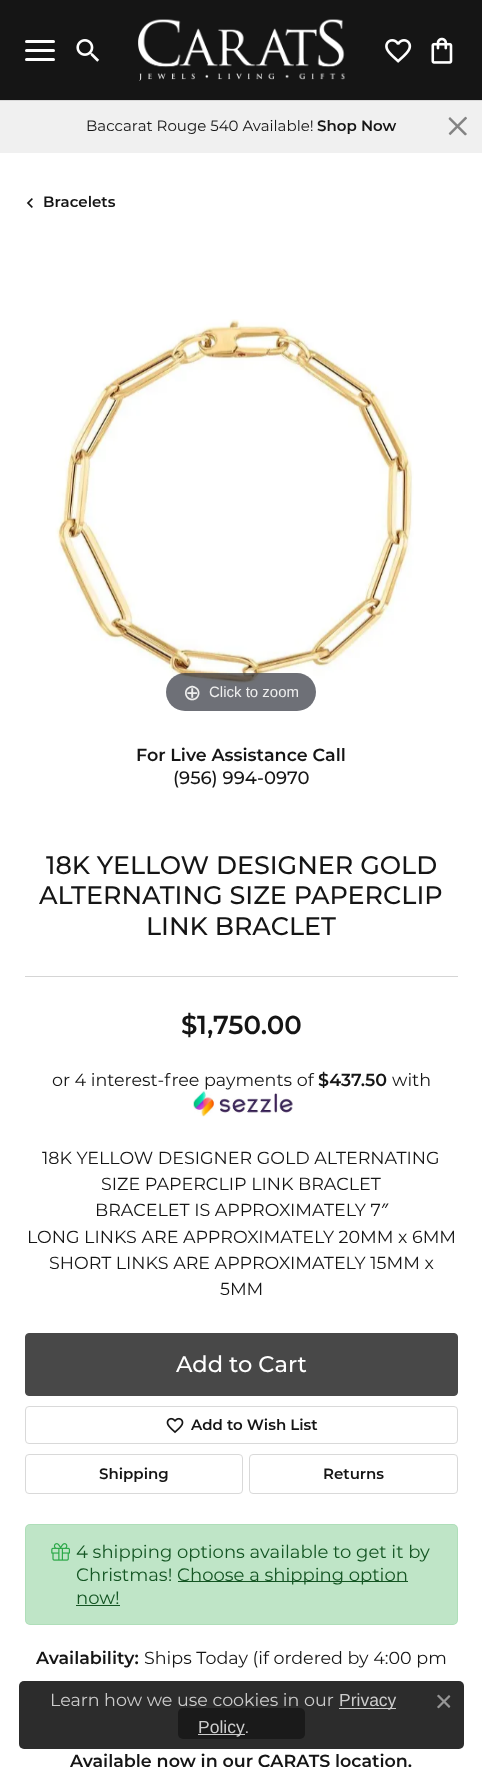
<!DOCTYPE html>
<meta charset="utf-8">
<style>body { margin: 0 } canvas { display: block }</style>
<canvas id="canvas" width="482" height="1767"></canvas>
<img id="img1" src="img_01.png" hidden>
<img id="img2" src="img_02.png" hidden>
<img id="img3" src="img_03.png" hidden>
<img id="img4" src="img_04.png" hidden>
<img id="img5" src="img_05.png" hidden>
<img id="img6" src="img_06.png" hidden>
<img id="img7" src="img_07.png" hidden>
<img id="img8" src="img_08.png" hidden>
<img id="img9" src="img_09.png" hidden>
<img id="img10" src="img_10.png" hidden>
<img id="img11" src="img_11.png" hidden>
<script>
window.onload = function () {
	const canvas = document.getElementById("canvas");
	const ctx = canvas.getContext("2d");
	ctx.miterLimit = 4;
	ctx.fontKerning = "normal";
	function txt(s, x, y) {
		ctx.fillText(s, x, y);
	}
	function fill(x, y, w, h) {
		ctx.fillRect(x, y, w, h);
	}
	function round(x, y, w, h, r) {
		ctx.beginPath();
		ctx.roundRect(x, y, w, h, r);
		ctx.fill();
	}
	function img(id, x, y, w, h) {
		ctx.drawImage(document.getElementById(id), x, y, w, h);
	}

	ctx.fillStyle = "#FFFFFF";
	fill(0, 0, 482, 1767);
	ctx.strokeStyle = "#D8D8D8";
	ctx.strokeRect(-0.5, -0.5, 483, 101);
	ctx.fillStyle = "#151515";
	fill(0, 0, 482, 100);
	img("img1", 138, 19, 207, 62);
	ctx.fillStyle = "#FFFFFF";
	round(25, 40, 30, 3, 1.5);
	round(25, 49, 30, 3, 1.5);
	round(25, 58, 30, 3, 1.5);
	img("img2", 76, 39, 24, 23);
	img("img3", 385, 39, 27, 24);
	img("img4", 431, 37, 22, 27);
	ctx.fillStyle = "#F0F0F0";
	fill(0, 101, 482, 52);
	img("img5", 448, 116, 19, 20);
	img("img6", 26, 198, 7, 10);
	img("img7", 55, 319, 359, 365);
	ctx.fillStyle = "rgba(49, 51, 61, 0.7)";
	round(166, 673, 150, 38, 19);
	ctx.fillStyle = "#D5D5D5";
	fill(25, 976, 433, 1);
	img("img8", 193, 1091, 100, 26);
	ctx.fillStyle = "#484848";
	ctx.beginPath();
	ctx.roundRect(25.5, 1333.5, 432, 62, 3.5);
	ctx.fill();
	ctx.strokeStyle = "#484848";
	ctx.stroke();
	ctx.beginPath();
	ctx.roundRect(25.5, 1406.5, 432, 37, 3.5);
	ctx.strokeStyle = "#D9D9D9";
	ctx.stroke();
	img("img9", 166, 1417, 18, 17);
	ctx.beginPath();
	ctx.roundRect(25.5, 1454.5, 217, 39, 3.5);
	ctx.stroke();
	ctx.beginPath();
	ctx.roundRect(249.5, 1454.5, 208, 39, 3.5);
	ctx.stroke();
	ctx.fillStyle = "#BFE5C7";
	round(25, 1524, 433, 101, 5);
	ctx.beginPath();
	ctx.roundRect(25.5, 1524.5, 432, 100, 4.5);
	ctx.strokeStyle = "rgba(40, 167, 69, 0.1)";
	ctx.stroke();
	img("img10", 51, 1543, 19, 18);
	ctx.fillStyle = "#145523";
	fill(178, 1581, 230, 1);
	fill(76, 1605, 44, 1);
	ctx.fillStyle = "#484848";
	round(178, 1708, 127, 31, 5);
	ctx.fillStyle = "rgba(21, 21, 21, 0.9)";
	round(19, 1681, 445, 68, 5);
	ctx.fillStyle = "#CCCCCC";
	fill(339, 1708, 57, 1);
	fill(198, 1734, 47, 1);
	img("img11", 437, 1694, 14, 15);
	ctx.font = "15px Montserrat";
	ctx.fillStyle = "#151515";
	txt("Baccarat Rouge 540 Available!", 86, 131);
	ctx.font = "600 15px Montserrat";
	txt("Shop Now", 317, 131);
	txt("Bracelets", 43, 207);
	ctx.font = "22px DejaVu Sans";
	ctx.fillStyle = "#EEEEEE";
	txt("⊕", 183, 700);
	ctx.font = "15px Liberation Sans";
	txt("Click to zoom", 209, 697);
	ctx.font = "600 17.5px Montserrat";
	ctx.fillStyle = "#151515";
	txt("For Live Assistance Call", 136, 761);
	ctx.font = "500 18px Montserrat";
	txt("(956) 994-0970", 173, 784);
	ctx.font = "500 25.4px Montserrat";
	txt("18K YELLOW DESIGNER GOLD", 46, 874);
	txt("ALTERNATING SIZE PAPERCLIP", 39, 904);
	txt("LINK BRACLET", 146, 935);
	ctx.font = "600 26px Montserrat";
	txt("$1,750.00", 181, 1034);
	ctx.font = "17.5px Montserrat";
	txt("or 4 interest-free payments of", 52, 1086);
	ctx.font = "600 17.5px Montserrat";
	txt("$437.50", 318, 1086);
	ctx.font = "17.5px Montserrat";
	txt("with", 392, 1086);
	txt("18K YELLOW DESIGNER GOLD ALTERNATING", 42, 1164);
	txt("SIZE PAPERCLIP LINK BRACLET", 101, 1190);
	txt("BRACELET IS APPROXIMATELY 7", 95, 1216);
	ctx.font = "17.5px Noto Sans";
	txt("″", 381, 1216);
	ctx.font = "17.5px Montserrat";
	txt("LONG LINKS ARE APPROXIMATELY 20MM x 6MM", 27, 1243);
	txt("SHORT LINKS ARE APPROXIMATELY 15MM x", 49, 1269);
	txt("5MM", 220, 1295);
	ctx.font = "500 22.5px Montserrat";
	ctx.fillStyle = "#FFFFFF";
	txt("Add to Cart", 176, 1372);
	ctx.font = "600 15px Montserrat";
	ctx.fillStyle = "#151515";
	txt("Add to Wish List", 191, 1430);
	txt("Shipping", 99, 1479);
	txt("Returns", 323, 1479);
	ctx.font = "18px Montserrat";
	ctx.fillStyle = "#145523";
	txt("4 shipping options available to get it by", 76, 1558);
	txt("Christmas!", 76, 1581);
	txt("Choose a shipping option", 177, 1581);
	txt("now!", 76, 1604);
	ctx.font = "600 17.5px Montserrat";
	ctx.fillStyle = "#151515";
	txt("Availability:", 36, 1664);
	ctx.font = "17.5px Montserrat";
	txt("Ships Today (if ordered by 4:00 pm", 144, 1664);
	ctx.font = "600 17.5px Montserrat";
	txt("Available now in our CARATS location.", 70, 1767);
	ctx.font = "17.5px Montserrat";
	ctx.fillStyle = "#CCCCCC";
	txt("Learn how we use cookies in our", 50, 1706);
	ctx.font = "17.5px Liberation Sans";
	txt("Privacy", 339, 1706);
	txt("Policy", 198, 1733);
	ctx.font = "17.5px Montserrat";
	txt(".", 245, 1733);
};
</script>
